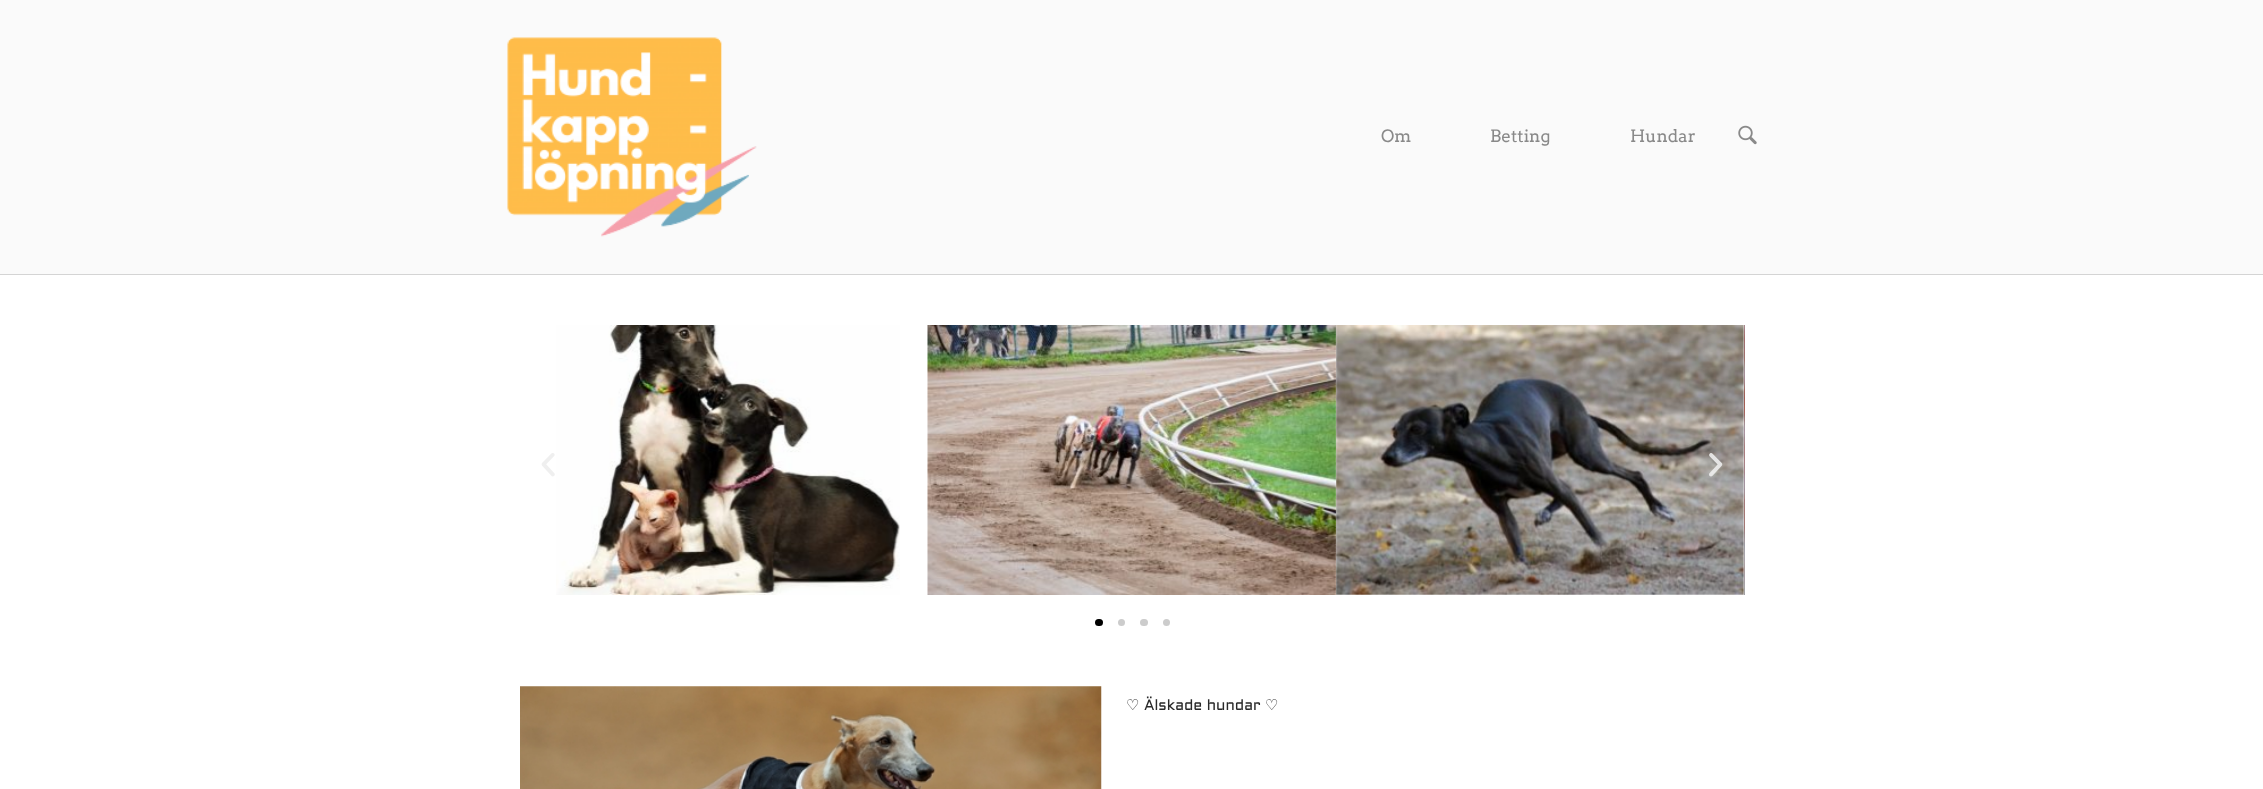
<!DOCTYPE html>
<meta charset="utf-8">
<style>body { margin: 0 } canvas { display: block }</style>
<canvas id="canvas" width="2263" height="789"></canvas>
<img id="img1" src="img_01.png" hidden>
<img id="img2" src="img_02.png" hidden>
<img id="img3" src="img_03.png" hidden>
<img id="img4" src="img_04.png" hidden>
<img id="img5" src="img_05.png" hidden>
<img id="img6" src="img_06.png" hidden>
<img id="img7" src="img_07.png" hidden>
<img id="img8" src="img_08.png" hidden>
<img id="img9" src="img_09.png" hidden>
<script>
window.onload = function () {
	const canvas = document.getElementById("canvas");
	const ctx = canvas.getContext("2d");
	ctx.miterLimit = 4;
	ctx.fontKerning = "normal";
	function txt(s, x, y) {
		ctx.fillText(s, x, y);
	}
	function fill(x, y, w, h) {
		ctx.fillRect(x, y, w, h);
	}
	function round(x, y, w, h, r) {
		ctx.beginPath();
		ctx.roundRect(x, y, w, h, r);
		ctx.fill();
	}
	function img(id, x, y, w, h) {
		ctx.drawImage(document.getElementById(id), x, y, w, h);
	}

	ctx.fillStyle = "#FFFFFF";
	fill(0, 0, 2263, 789);
	ctx.fillStyle = "#FAFAFA";
	fill(0, 0, 2263, 274);
	ctx.fillStyle = "#D4D4D4";
	fill(0, 274, 2263, 1);
	img("img1", 507, 37, 250, 200);
	img("img2", 1738, 125, 19, 20);
	img("img3", 541, 453, 14, 24);
	img("img4", 556, 325, 344, 270);
	img("img5", 927, 325, 410, 270);
	img("img6", 1336, 325, 408, 270);
	img("img7", 1744, 325, 1, 270);
	img("img8", 1709, 453, 14, 24);
	ctx.fillStyle = "#000000";
	round(1095, 619, 8, 7, 3.5);
	ctx.fillStyle = "#CCCCCC";
	ctx.beginPath();
	ctx.arc(1121.5, 622.5, 3.5, 0, Math.PI * 2);
	ctx.fill();
	round(1140, 619, 8, 7, 3.5);
	ctx.beginPath();
	ctx.arc(1166.5, 622.5, 3.5, 0, Math.PI * 2);
	ctx.fill();
	img("img9", 520, 686, 582, 103);
	ctx.font = "17px Arvo";
	ctx.fillStyle = "#898989";
	txt("Om", 1381, 142);
	txt("Betting", 1490, 142);
	txt("Hundar", 1630, 142);
	ctx.font = "15px DejaVu Sans";
	ctx.fillStyle = "#292929";
	txt("♡", 1126, 710);
	ctx.font = "15px Aldrich";
	txt("Älskade hundar", 1144, 710);
	ctx.font = "15px DejaVu Sans";
	txt("♡", 1265, 710);
};
</script>
